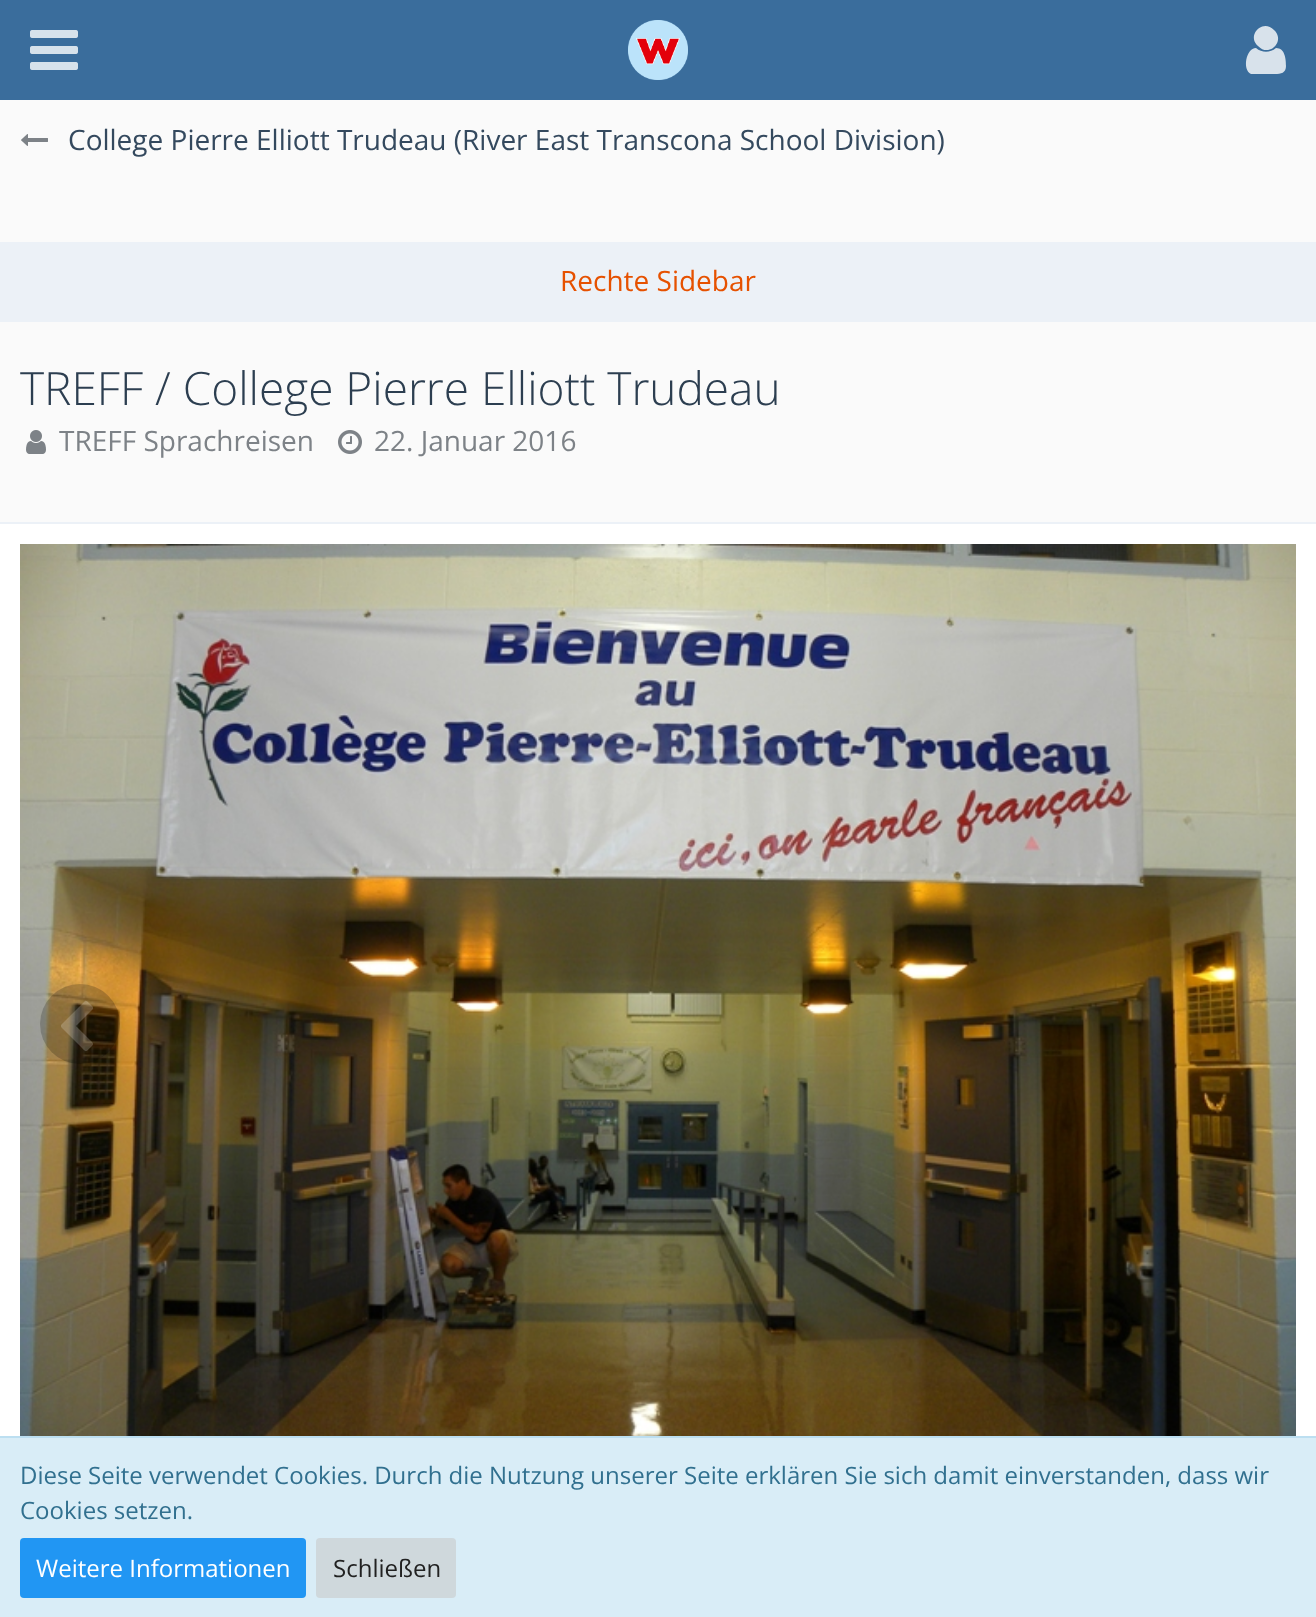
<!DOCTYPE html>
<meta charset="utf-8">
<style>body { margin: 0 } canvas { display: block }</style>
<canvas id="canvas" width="1316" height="1617"></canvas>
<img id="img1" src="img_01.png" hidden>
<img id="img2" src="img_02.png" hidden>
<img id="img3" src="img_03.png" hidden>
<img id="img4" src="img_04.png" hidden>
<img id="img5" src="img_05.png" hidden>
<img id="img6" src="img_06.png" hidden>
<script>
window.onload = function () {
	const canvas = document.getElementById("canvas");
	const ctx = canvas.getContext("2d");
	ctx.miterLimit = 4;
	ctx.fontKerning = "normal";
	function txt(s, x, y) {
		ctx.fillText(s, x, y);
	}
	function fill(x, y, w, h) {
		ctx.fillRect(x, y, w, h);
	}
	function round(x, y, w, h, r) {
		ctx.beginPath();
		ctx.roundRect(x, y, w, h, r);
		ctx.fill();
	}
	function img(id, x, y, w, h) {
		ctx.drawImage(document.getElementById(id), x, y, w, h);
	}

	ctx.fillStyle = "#FAFAFA";
	fill(0, 0, 1316, 1617);
	ctx.fillStyle = "#3A6D9C";
	fill(0, 0, 1316, 100);
	img("img1", 30, 30, 48, 40);
	ctx.fillStyle = "#D8E2EB";
	ctx.beginPath();
	ctx.moveTo(1286, 66);
	ctx.bezierCurveTo(1286, 73, 1281, 74, 1275, 74);
	ctx.lineTo(1251, 74);
	ctx.bezierCurveTo(1242, 70, 1246, 48, 1256, 48);
	ctx.bezierCurveTo(1262, 53, 1270, 53, 1276, 48);
	ctx.bezierCurveTo(1285, 48, 1286, 59, 1286, 66);
	ctx.closePath();
	ctx.moveTo(1274, 30);
	ctx.bezierCurveTo(1286, 41, 1269, 58, 1258, 46);
	ctx.bezierCurveTo(1246, 35, 1263, 18, 1274, 30);
	ctx.closePath();
	ctx.fill();
	img("img2", 628, 20, 60, 60);
	img("img3", 21, 134, 27, 12);
	ctx.fillStyle = "#ECF1F7";
	fill(0, 242, 1316, 80);
	img("img4", 26, 430, 20, 24);
	img("img5", 338, 430, 24, 24);
	ctx.fillStyle = "#FFFFFF";
	fill(0, 524, 1316, 912);
	ctx.fillStyle = "#ECF1F7";
	fill(0, 522, 1316, 2);
	img("img6", 20, 544, 1276, 892);
	ctx.fillStyle = "rgba(0, 0, 0, 0.2)";
	ctx.beginPath();
	ctx.arc(80, 1024, 40, 0, Math.PI * 2);
	ctx.fill();
	ctx.fillStyle = "rgba(255, 255, 255, 0.2)";
	ctx.beginPath();
	ctx.moveTo(93, 1009);
	ctx.lineTo(76, 1026);
	ctx.lineTo(90, 1040);
	ctx.bezierCurveTo(94, 1044, 94, 1044, 91, 1047);
	ctx.bezierCurveTo(85, 1053, 86, 1052, 81, 1047);
	ctx.lineTo(61, 1027);
	ctx.lineTo(61, 1025);
	ctx.lineTo(85, 1001);
	ctx.bezierCurveTo(86, 1000, 88, 1002, 89, 1003);
	ctx.lineTo(93, 1007);
	ctx.bezierCurveTo(93, 1008, 93, 1009, 93, 1009);
	ctx.closePath();
	ctx.fill();
	ctx.fillStyle = "#D9EDF7";
	fill(0, 1438, 1316, 179);
	ctx.fillStyle = "#BCDFF1";
	fill(0, 1436, 1316, 2);
	ctx.fillStyle = "#2196F3";
	round(20, 1538, 286, 60, 4);
	ctx.fillStyle = "#CFD8DC";
	round(316, 1538, 140, 60, 4);
	ctx.font = "28px Open Sans";
	ctx.fillStyle = "#34495E";
	txt("College Pierre Elliott Trudeau (River East Transcona School Division)", 68, 150);
	ctx.fillStyle = "#E65100";
	txt("Rechte Sidebar", 560, 291);
	ctx.font = "300 46px Open Sans";
	ctx.fillStyle = "#2C3E50";
	txt("TREFF / College Pierre Elliott Trudeau", 20, 405);
	ctx.font = "28px Open Sans";
	ctx.fillStyle = "#7D8287";
	txt("TREFF Sprachreisen", 59, 451);
	txt("22. Januar 2016", 374, 451);
	ctx.font = "24px Open Sans";
	ctx.fillStyle = "#31708F";
	txt("Diese Seite verwendet Cookies. Durch die Nutzung unserer Seite erklären Sie sich damit einverstanden, dass wir", 20, 1484);
	txt("Cookies setzen.", 20, 1519);
	ctx.fillStyle = "#FFFFFF";
	txt("Weitere Informationen", 36, 1577);
	ctx.fillStyle = "#212121";
	txt("Schließen", 333, 1577);
};
</script>
